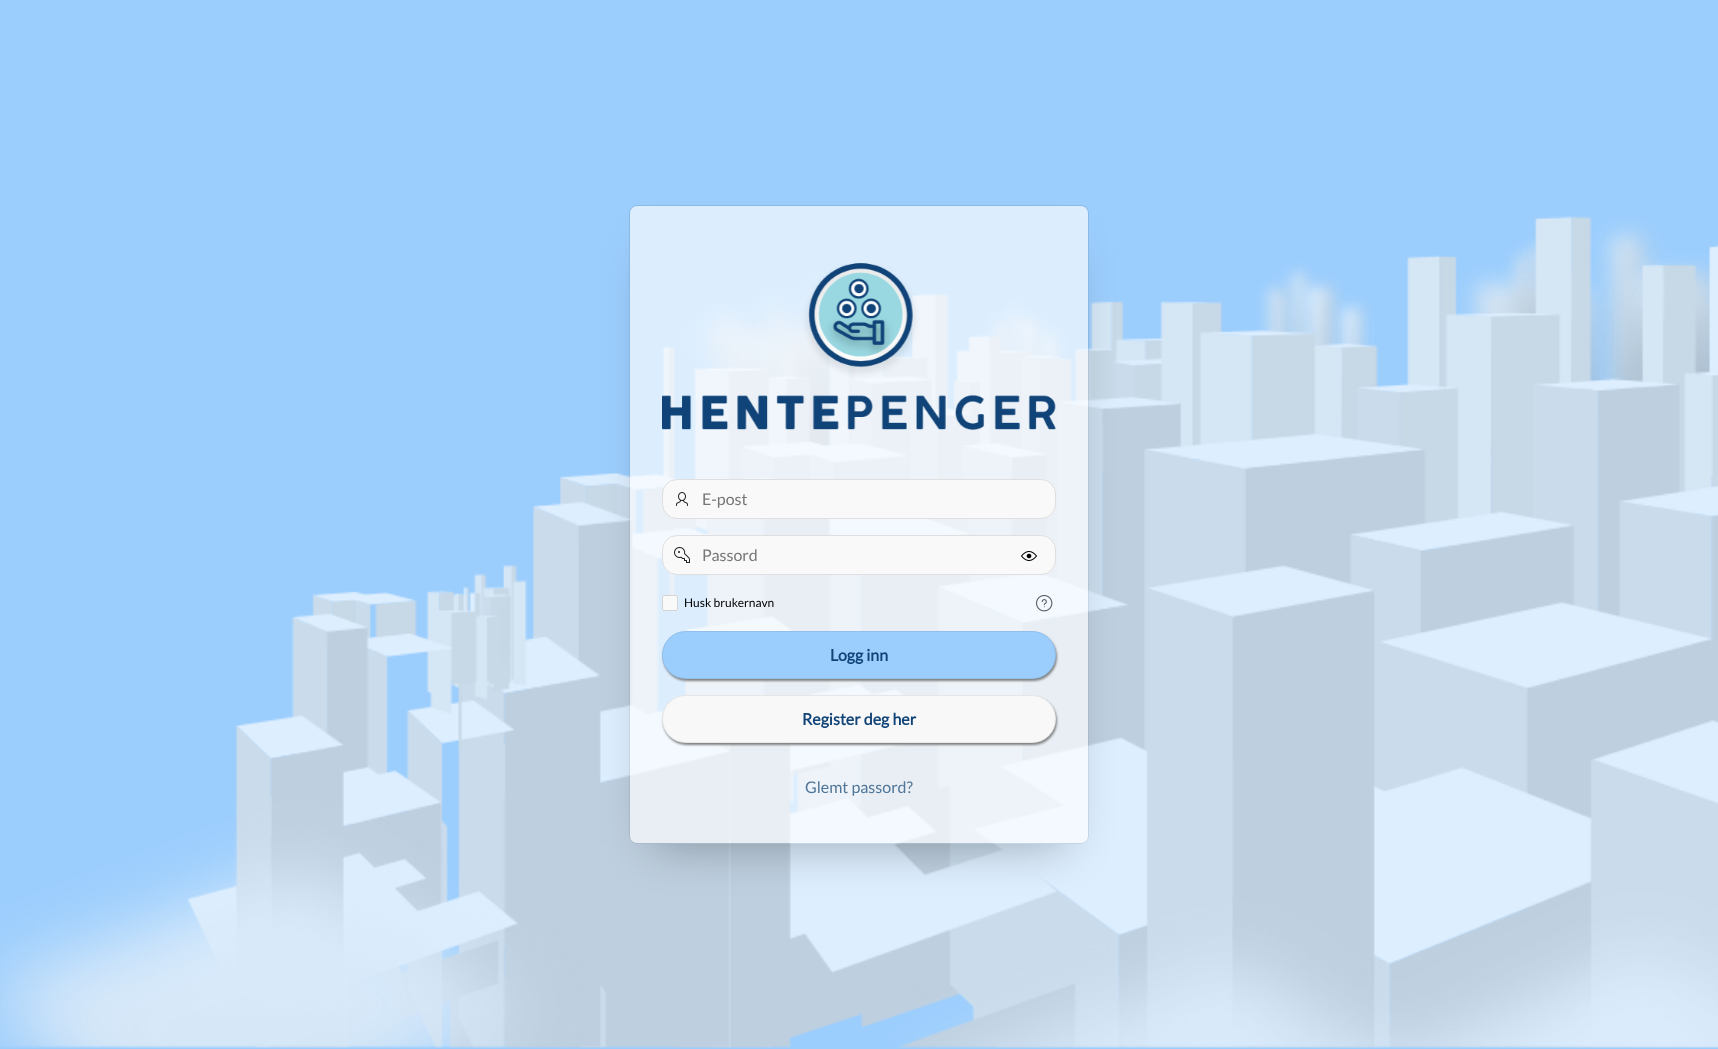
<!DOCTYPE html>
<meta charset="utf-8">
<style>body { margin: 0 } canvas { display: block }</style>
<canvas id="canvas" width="1718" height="1049"></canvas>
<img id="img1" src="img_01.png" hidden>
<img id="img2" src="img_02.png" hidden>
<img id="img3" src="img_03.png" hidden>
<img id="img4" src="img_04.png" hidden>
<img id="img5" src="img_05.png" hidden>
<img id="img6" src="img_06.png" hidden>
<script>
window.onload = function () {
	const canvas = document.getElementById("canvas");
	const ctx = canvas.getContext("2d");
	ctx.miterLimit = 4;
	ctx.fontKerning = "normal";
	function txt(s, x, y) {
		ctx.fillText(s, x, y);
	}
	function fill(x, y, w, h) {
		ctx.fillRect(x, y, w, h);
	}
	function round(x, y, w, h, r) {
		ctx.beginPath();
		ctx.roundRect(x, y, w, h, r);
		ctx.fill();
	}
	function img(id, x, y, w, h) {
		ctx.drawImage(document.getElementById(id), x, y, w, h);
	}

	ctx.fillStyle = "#9CCEFD";
	fill(0, 0, 1718, 1049);
	img("img1", 0, 216, 1718, 832);
	ctx.save();
	ctx.beginPath();
	ctx.moveTo(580, 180);
	ctx.lineTo(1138, 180);
	ctx.lineTo(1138, 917);
	ctx.lineTo(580, 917);
	ctx.closePath();
	ctx.moveTo(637, 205);
	ctx.lineTo(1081, 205);
	ctx.bezierCurveTo(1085.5, 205, 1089, 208.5, 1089, 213);
	ctx.lineTo(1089, 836);
	ctx.bezierCurveTo(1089, 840.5, 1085.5, 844, 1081, 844);
	ctx.lineTo(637, 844);
	ctx.bezierCurveTo(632.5, 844, 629, 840.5, 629, 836);
	ctx.lineTo(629, 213);
	ctx.bezierCurveTo(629, 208.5, 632.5, 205, 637, 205);
	ctx.closePath();
	ctx.clip("evenodd");
	ctx.fillStyle = "rgba(0, 0, 0, 0.3)";
	ctx.filter = "blur(24px)";
	ctx.beginPath();
	ctx.rect(653, 253, 412, 591);
	ctx.fill();
	ctx.filter = "none";
	ctx.restore();
	ctx.fillStyle = "rgba(255, 255, 255, 0.65)";
	round(630, 206, 458, 637, 7);
	ctx.beginPath();
	ctx.roundRect(629.5, 205.5, 459, 638, 7.5);
	ctx.strokeStyle = "rgba(0, 0, 0, 0.1)";
	ctx.stroke();
	img("img2", 662, 263, 394, 167);
	ctx.fillStyle = "#F9F9F9";
	ctx.beginPath();
	ctx.roundRect(662.5, 479.5, 393, 39, 14.5);
	ctx.fill();
	ctx.strokeStyle = "#DFDFDF";
	ctx.stroke();
	img("img3", 676, 492, 12, 14);
	ctx.beginPath();
	ctx.roundRect(662.5, 535.5, 393, 39, 14.5);
	ctx.fill();
	ctx.stroke();
	img("img4", 674, 547, 16, 16);
	img("img5", 1021, 551, 16, 10);
	round(662, 595, 16, 16, 2);
	ctx.beginPath();
	ctx.roundRect(662.5, 595.5, 15, 15, 1.5);
	ctx.strokeStyle = "rgba(0, 0, 0, 0.15)";
	ctx.stroke();
	img("img6", 1036, 595, 17, 17);
	ctx.fillStyle = "#808080";
	ctx.filter = "blur(1px)";
	ctx.beginPath();
	ctx.roundRect(663, 633, 394, 48, 24);
	ctx.fill();
	ctx.filter = "none";
	ctx.fillStyle = "#9CCEFD";
	round(662, 631, 394, 48, 24);
	ctx.beginPath();
	ctx.roundRect(662.5, 631.5, 393, 47, 23.5);
	ctx.strokeStyle = "rgba(0, 0, 0, 0.07)";
	ctx.stroke();
	ctx.fillStyle = "#808080";
	ctx.filter = "blur(1px)";
	ctx.beginPath();
	ctx.roundRect(663, 697, 394, 48, 24);
	ctx.fill();
	ctx.filter = "none";
	ctx.fillStyle = "#F8F8F8";
	round(662, 695, 394, 48, 24);
	ctx.beginPath();
	ctx.roundRect(662.5, 695.5, 393, 47, 23.5);
	ctx.stroke();
	ctx.font = "16px Lato";
	ctx.fillStyle = "#777777";
	txt("E-post", 702, 505);
	txt("Passord", 702, 561);
	ctx.font = "12px Lato";
	ctx.fillStyle = "#000000";
	txt("Husk brukernavn", 684, 607);
	ctx.font = "bold 16px Lato";
	ctx.fillStyle = "#104378";
	txt("Logg inn", 830, 661);
	txt("Register deg her", 802, 725);
	ctx.font = "16px Lato";
	ctx.fillStyle = "#4F7598";
	txt("Glemt passord?", 805, 793);
};
</script>
